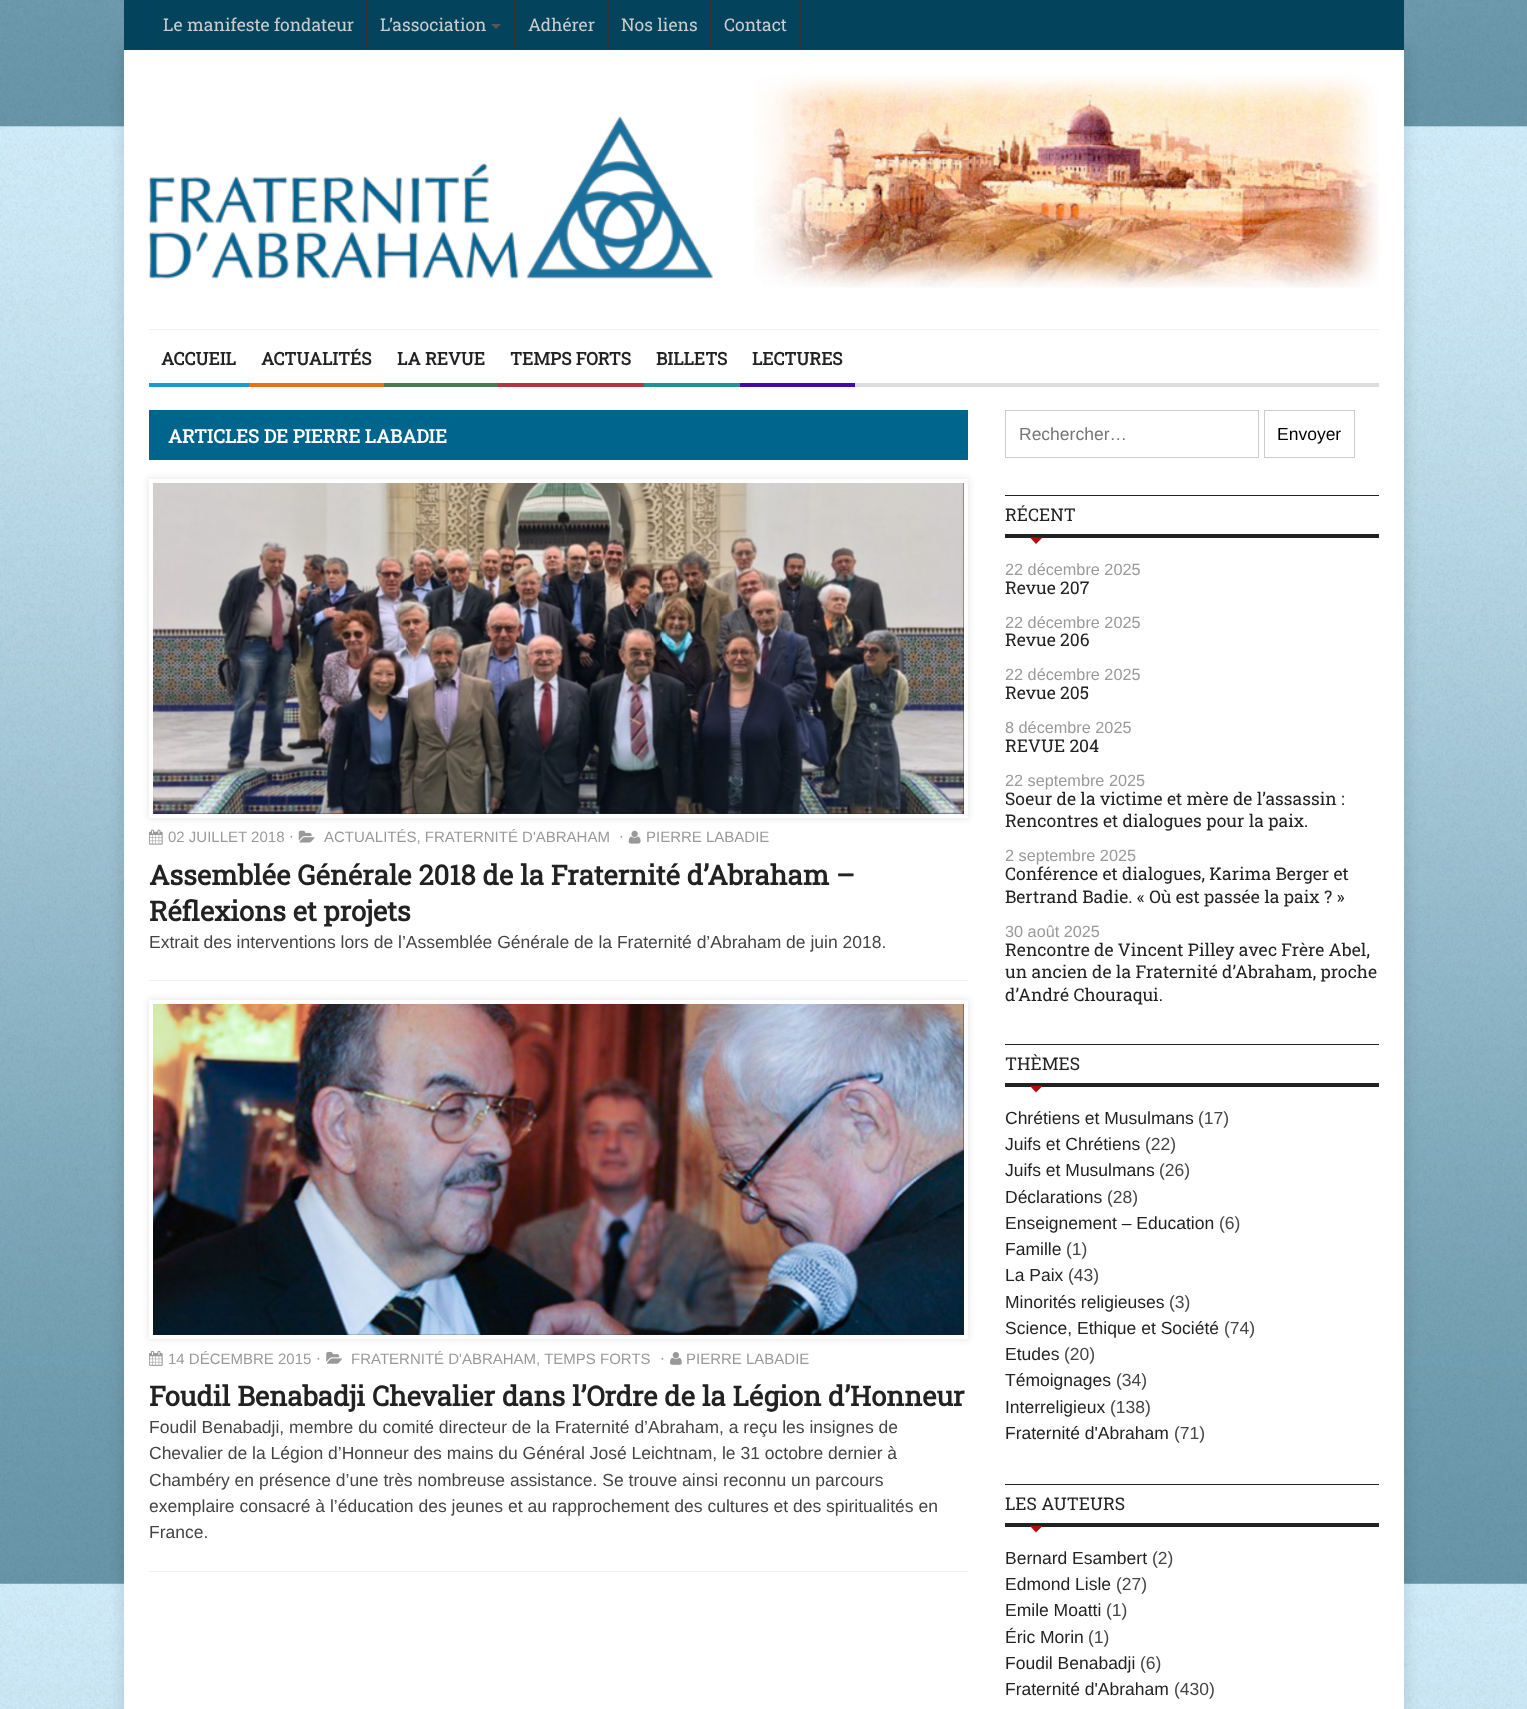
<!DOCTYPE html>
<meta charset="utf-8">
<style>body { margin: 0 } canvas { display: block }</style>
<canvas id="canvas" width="1527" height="1709"></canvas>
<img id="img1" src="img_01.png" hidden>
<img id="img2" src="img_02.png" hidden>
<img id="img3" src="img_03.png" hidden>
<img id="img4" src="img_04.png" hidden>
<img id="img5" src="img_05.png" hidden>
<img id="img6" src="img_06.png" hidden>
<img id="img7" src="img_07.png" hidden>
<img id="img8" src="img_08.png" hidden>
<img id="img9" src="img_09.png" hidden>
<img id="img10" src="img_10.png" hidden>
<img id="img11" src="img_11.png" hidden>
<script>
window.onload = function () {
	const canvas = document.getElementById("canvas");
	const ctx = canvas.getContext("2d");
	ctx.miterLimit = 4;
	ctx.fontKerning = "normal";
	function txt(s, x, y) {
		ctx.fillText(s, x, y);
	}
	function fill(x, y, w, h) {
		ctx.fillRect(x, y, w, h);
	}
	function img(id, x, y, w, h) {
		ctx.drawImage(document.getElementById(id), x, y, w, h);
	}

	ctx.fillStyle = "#FFFFFF";
	fill(0, 0, 1527, 1709);
	img("img1", 0, 0, 1527, 1709);
	ctx.fillStyle = "rgba(34, 34, 34, 0.1)";
	ctx.filter = "blur(6px)";
	ctx.beginPath();
	ctx.rect(120, 46, 1288, 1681);
	ctx.fill();
	ctx.filter = "none";
	ctx.fillStyle = "#FFFFFF";
	fill(124, 50, 1280, 1659);
	ctx.fillStyle = "#03435C";
	fill(124, 0, 1280, 50);
	ctx.fillStyle = "#333333";
	fill(366, 0, 1, 50);
	fill(149, 0, 1, 50);
	fill(514, 0, 1, 50);
	ctx.fillStyle = "#555555";
	ctx.beginPath();
	ctx.moveTo(491, 24);
	ctx.lineTo(501, 24);
	ctx.lineTo(496, 29);
	ctx.closePath();
	ctx.fill();
	ctx.fillStyle = "#333333";
	fill(608, 0, 1, 50);
	fill(710, 0, 1, 50);
	fill(800, 0, 1, 50);
	img("img2", 148, 116, 565, 163);
	img("img3", 754, 75, 625, 213);
	ctx.fillStyle = "#F0F0F0";
	fill(149, 329, 1230, 1);
	ctx.fillStyle = "#DDDDDD";
	fill(855, 383, 524, 4);
	ctx.fillStyle = "#169CC8";
	fill(149, 383, 100, 4);
	ctx.fillStyle = "#E67020";
	fill(249, 383, 135, 4);
	ctx.fillStyle = "#4A7B4D";
	fill(384, 383, 114, 4);
	ctx.fillStyle = "#AF3643";
	fill(498, 383, 146, 4);
	ctx.fillStyle = "#258F92";
	fill(644, 383, 96, 4);
	ctx.fillStyle = "#4509AA";
	fill(740, 383, 115, 4);
	ctx.fillStyle = "#00658D";
	fill(149, 410, 819, 50);
	ctx.fillStyle = "#F0F0F0";
	fill(149, 980, 819, 1);
	ctx.fillStyle = "rgba(34, 34, 34, 0.1)";
	ctx.filter = "blur(3px)";
	ctx.beginPath();
	ctx.rect(148, 478, 821, 341);
	ctx.fill();
	ctx.filter = "none";
	ctx.fillStyle = "#222222";
	ctx.beginPath();
	ctx.rect(151, 481, 815, 335);
	ctx.fill();
	ctx.strokeStyle = "#FFFFFF";
	ctx.lineWidth = 4;
	ctx.stroke();
	img("img4", 153, 483, 811, 331);
	img("img5", 149, 829, 14, 16);
	img("img6", 298, 830, 17, 13);
	img("img7", 628, 830, 13, 14);
	ctx.fillStyle = "#F0F0F0";
	fill(149, 1571, 819, 1);
	ctx.fillStyle = "rgba(34, 34, 34, 0.1)";
	ctx.filter = "blur(3px)";
	ctx.beginPath();
	ctx.rect(148, 999, 821, 341);
	ctx.fill();
	ctx.filter = "none";
	ctx.fillStyle = "#222222";
	ctx.beginPath();
	ctx.rect(151, 1002, 815, 335);
	ctx.fill();
	ctx.stroke();
	img("img8", 153, 1004, 811, 331);
	img("img9", 149, 1350, 14, 16);
	img("img10", 326, 1351, 16, 13);
	img("img11", 670, 1352, 12, 13);
	ctx.strokeStyle = "#CCCCCC";
	ctx.lineWidth = 1;
	ctx.strokeRect(1005.5, 410.5, 253, 47);
	ctx.strokeRect(1264.5, 410.5, 90, 47);
	fill(1005, 495, 374, 1);
	fill(1005, 534, 374, 4);
	ctx.fillStyle = "#B50D0D";
	ctx.beginPath();
	ctx.moveTo(1030, 537.5);
	ctx.lineTo(1042.5, 537.5);
	ctx.lineTo(1036, 544);
	ctx.closePath();
	ctx.fill();
	ctx.fillStyle = "#222222";
	fill(1005, 1044, 374, 1);
	fill(1005, 1083, 374, 4);
	ctx.fillStyle = "#B50D0D";
	ctx.beginPath();
	ctx.moveTo(1030, 1086);
	ctx.lineTo(1042.5, 1086);
	ctx.lineTo(1036, 1092.5);
	ctx.closePath();
	ctx.fill();
	ctx.fillStyle = "#222222";
	fill(1005, 1484, 374, 1);
	fill(1005, 1523, 374, 4);
	ctx.fillStyle = "#B50D0D";
	ctx.beginPath();
	ctx.moveTo(1030, 1526);
	ctx.lineTo(1042.5, 1526);
	ctx.lineTo(1036, 1532.5);
	ctx.closePath();
	ctx.fill();
	ctx.font = "17.5px Roboto Slab";
	ctx.fillStyle = "#CCCCCC";
	txt("Le manifeste fondateur", 163, 31);
	txt("L’association", 380, 31);
	txt("Adhérer", 528, 31);
	txt("Nos liens", 621, 31);
	txt("Contact", 724, 31);
	ctx.font = "bold 17.5px Roboto Slab";
	ctx.fillStyle = "#222222";
	txt("ACCUEIL", 161, 365);
	txt("ACTUALITÉS", 261, 365);
	txt("LA REVUE", 397, 365);
	txt("TEMPS FORTS", 510, 365);
	txt("BILLETS", 656, 365);
	txt("LECTURES", 752, 365);
	ctx.font = "bold 18.75px Roboto Slab";
	ctx.fillStyle = "#FFFFFF";
	txt("ARTICLES DE PIERRE LABADIE", 168, 443);
	ctx.font = "15px Liberation Sans";
	ctx.fillStyle = "#999999";
	txt("02 JUILLET 2018", 168, 842);
	ctx.font = "15px DejaVu Sans";
	txt("⋅", 289, 842);
	ctx.font = "15px Liberation Sans";
	txt("ACTUALITÉS, FRATERNITÉ D'ABRAHAM", 324, 842);
	ctx.font = "15px DejaVu Sans";
	txt("⋅", 619, 842);
	ctx.font = "15px Liberation Sans";
	txt("PIERRE LABADIE", 646, 842);
	ctx.font = "bold 27.5px Roboto Slab";
	ctx.fillStyle = "#222222";
	txt("Assemblée Générale 2018 de la Fraternité d’Abraham –", 149, 885);
	txt("Réflexions et projets", 149, 921);
	ctx.font = "17.5px Liberation Sans";
	ctx.fillStyle = "#444444";
	txt("Extrait des interventions lors de l’Assemblée Générale de la Fraternité d’Abraham de juin 2018.", 149, 948);
	ctx.font = "15px Liberation Sans";
	ctx.fillStyle = "#999999";
	txt("14 DÉCEMBRE 2015", 168, 1364);
	ctx.font = "15px DejaVu Sans";
	txt("⋅", 316, 1364);
	ctx.font = "15px Liberation Sans";
	txt("FRATERNITÉ D'ABRAHAM, TEMPS FORTS", 351, 1364);
	ctx.font = "15px DejaVu Sans";
	txt("⋅", 660, 1364);
	ctx.font = "15px Liberation Sans";
	txt("PIERRE LABADIE", 686, 1364);
	ctx.font = "bold 27.5px Roboto Slab";
	ctx.fillStyle = "#222222";
	txt("Foudil Benabadji Chevalier dans l’Ordre de la Légion d’Honneur", 149, 1406);
	ctx.font = "17.5px Liberation Sans";
	ctx.fillStyle = "#444444";
	txt("Foudil Benabadji, membre du comité directeur de la Fraternité d’Abraham, a reçu les insignes de", 149, 1433);
	txt("Chevalier de la Légion d’Honneur des mains du Général José Leichtnam, le 31 octobre dernier à", 149, 1459);
	txt("Chambéry en présence d’une très nombreuse assistance. Se trouve ainsi reconnu un parcours", 149, 1486);
	txt("exemplaire consacré à l’éducation des jeunes et au rapprochement des cultures et des spiritualités en", 149, 1512);
	txt("France.", 149, 1538);
	ctx.fillStyle = "#757575";
	txt("Rechercher…", 1019, 440);
	ctx.fillStyle = "#000000";
	txt("Envoyer", 1277, 440);
	ctx.font = "17.5px Roboto Slab";
	ctx.fillStyle = "#222222";
	txt("RÉCENT", 1005, 521);
	ctx.font = "16.25px Liberation Sans";
	ctx.fillStyle = "#999999";
	txt("22 décembre 2025", 1005, 575);
	ctx.font = "17.5px Roboto Slab";
	ctx.fillStyle = "#222222";
	txt("Revue 207", 1005, 594);
	ctx.font = "16.25px Liberation Sans";
	ctx.fillStyle = "#999999";
	txt("22 décembre 2025", 1005, 628);
	ctx.font = "17.5px Roboto Slab";
	ctx.fillStyle = "#222222";
	txt("Revue 206", 1005, 646);
	ctx.font = "16.25px Liberation Sans";
	ctx.fillStyle = "#999999";
	txt("22 décembre 2025", 1005, 680);
	ctx.font = "17.5px Roboto Slab";
	ctx.fillStyle = "#222222";
	txt("Revue 205", 1005, 699);
	ctx.font = "16.25px Liberation Sans";
	ctx.fillStyle = "#999999";
	txt("8 décembre 2025", 1005, 733);
	ctx.font = "17.5px Roboto Slab";
	ctx.fillStyle = "#222222";
	txt("REVUE 204", 1005, 752);
	ctx.font = "16.25px Liberation Sans";
	ctx.fillStyle = "#999999";
	txt("22 septembre 2025", 1005, 786);
	ctx.font = "17.5px Roboto Slab";
	ctx.fillStyle = "#222222";
	txt("Soeur de la victime et mère de l’assassin :", 1005, 805);
	txt("Rencontres et dialogues pour la paix.", 1005, 827);
	ctx.font = "16.25px Liberation Sans";
	ctx.fillStyle = "#999999";
	txt("2 septembre 2025", 1005, 861);
	ctx.font = "17.5px Roboto Slab";
	ctx.fillStyle = "#222222";
	txt("Conférence et dialogues, Karima Berger et", 1005, 880);
	txt("Bertrand Badie. « Où est passée la paix ? »", 1005, 903);
	ctx.font = "16.25px Liberation Sans";
	ctx.fillStyle = "#999999";
	txt("30 août 2025", 1005, 937);
	ctx.font = "17.5px Roboto Slab";
	ctx.fillStyle = "#222222";
	txt("Rencontre de Vincent Pilley avec Frère Abel,", 1005, 956);
	txt("un ancien de la Fraternité d’Abraham, proche", 1005, 978);
	txt("d’André Chouraqui.", 1005, 1001);
	txt("THÈMES", 1005, 1070);
	ctx.font = "17.5px Liberation Sans";
	txt("Chrétiens et Musulmans", 1005, 1124);
	ctx.fillStyle = "#444444";
	txt("(17)", 1198, 1124);
	ctx.fillStyle = "#222222";
	txt("Juifs et Chrétiens", 1005, 1150);
	ctx.fillStyle = "#444444";
	txt("(22)", 1145, 1150);
	ctx.fillStyle = "#222222";
	txt("Juifs et Musulmans", 1005, 1176);
	ctx.fillStyle = "#444444";
	txt("(26)", 1159, 1176);
	ctx.fillStyle = "#222222";
	txt("Déclarations", 1005, 1203);
	ctx.fillStyle = "#444444";
	txt("(28)", 1107, 1203);
	ctx.fillStyle = "#222222";
	txt("Enseignement – Education", 1005, 1229);
	ctx.fillStyle = "#444444";
	txt("(6)", 1219, 1229);
	ctx.fillStyle = "#222222";
	txt("Famille", 1005, 1255);
	ctx.fillStyle = "#444444";
	txt("(1)", 1066, 1255);
	ctx.fillStyle = "#222222";
	txt("La Paix", 1005, 1281);
	ctx.fillStyle = "#444444";
	txt("(43)", 1068, 1281);
	ctx.fillStyle = "#222222";
	txt("Minorités religieuses", 1005, 1308);
	ctx.fillStyle = "#444444";
	txt("(3)", 1169, 1308);
	ctx.fillStyle = "#222222";
	txt("Science, Ethique et Société", 1005, 1334);
	ctx.fillStyle = "#444444";
	txt("(74)", 1224, 1334);
	ctx.fillStyle = "#222222";
	txt("Etudes", 1005, 1360);
	ctx.fillStyle = "#444444";
	txt("(20)", 1064, 1360);
	ctx.fillStyle = "#222222";
	txt("Témoignages", 1005, 1386);
	ctx.fillStyle = "#444444";
	txt("(34)", 1116, 1386);
	ctx.fillStyle = "#222222";
	txt("Interreligieux", 1005, 1413);
	ctx.fillStyle = "#444444";
	txt("(138)", 1110, 1413);
	ctx.fillStyle = "#222222";
	txt("Fraternité d'Abraham", 1005, 1439);
	ctx.fillStyle = "#444444";
	txt("(71)", 1174, 1439);
	ctx.font = "17.5px Roboto Slab";
	ctx.fillStyle = "#222222";
	txt("LES AUTEURS", 1005, 1510);
	ctx.font = "17.5px Liberation Sans";
	txt("Bernard Esambert", 1005, 1564);
	ctx.fillStyle = "#444444";
	txt("(2)", 1152, 1564);
	ctx.fillStyle = "#222222";
	txt("Edmond Lisle", 1005, 1590);
	ctx.fillStyle = "#444444";
	txt("(27)", 1116, 1590);
	ctx.fillStyle = "#222222";
	txt("Emile Moatti", 1005, 1616);
	ctx.fillStyle = "#444444";
	txt("(1)", 1106, 1616);
	ctx.fillStyle = "#222222";
	txt("Éric Morin", 1005, 1643);
	ctx.fillStyle = "#444444";
	txt("(1)", 1088, 1643);
	ctx.fillStyle = "#222222";
	txt("Foudil Benabadji", 1005, 1669);
	ctx.fillStyle = "#444444";
	txt("(6)", 1140, 1669);
	ctx.fillStyle = "#222222";
	txt("Fraternité d'Abraham", 1005, 1695);
	ctx.fillStyle = "#444444";
	txt("(430)", 1174, 1695);
};
</script>
